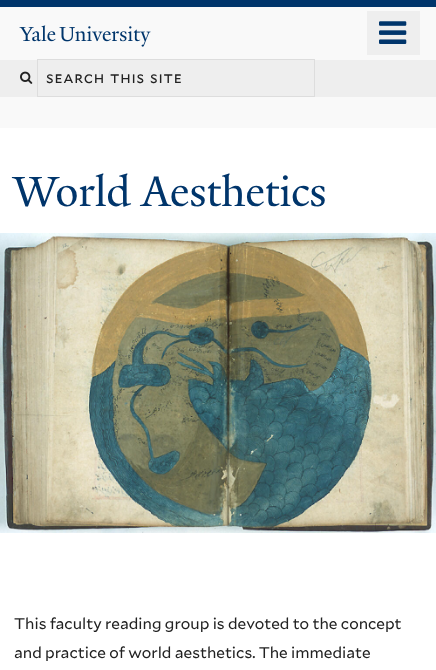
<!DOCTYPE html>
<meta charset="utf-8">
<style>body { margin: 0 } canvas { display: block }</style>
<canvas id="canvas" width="436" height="670"></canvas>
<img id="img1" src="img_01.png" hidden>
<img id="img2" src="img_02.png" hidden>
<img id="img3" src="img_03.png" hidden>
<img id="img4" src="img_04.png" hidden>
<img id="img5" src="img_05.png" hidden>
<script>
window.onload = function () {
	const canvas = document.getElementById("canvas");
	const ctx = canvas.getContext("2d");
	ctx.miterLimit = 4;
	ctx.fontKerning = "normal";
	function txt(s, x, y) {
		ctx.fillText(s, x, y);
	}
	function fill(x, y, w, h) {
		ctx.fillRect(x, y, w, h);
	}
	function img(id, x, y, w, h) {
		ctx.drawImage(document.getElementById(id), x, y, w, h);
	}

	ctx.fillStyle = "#FFFFFF";
	fill(0, 0, 436, 670);
	ctx.fillStyle = "#00356B";
	fill(0, 0, 436, 7);
	ctx.fillStyle = "#F9F9F9";
	fill(0, 7, 436, 121);
	img("img1", 19, 25, 37, 17);
	img("img2", 59, 26, 92, 21);
	ctx.fillStyle = "#EEEEEE";
	fill(367, 11, 53, 44);
	img("img3", 379, 21, 28, 23);
	fill(0, 60, 436, 37);
	img("img4", 20, 71, 13, 13);
	ctx.strokeStyle = "#DDDDDD";
	ctx.strokeRect(37.5, 59.5, 277, 37);
	img("img5", 0, 233, 436, 300);
	ctx.letterSpacing = "0.75px";
	ctx.wordSpacing = "1px";
	ctx.font = "15.5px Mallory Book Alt";
	ctx.fillStyle = "#222222";
	txt("search this site", 46, 83);
	ctx.letterSpacing = "0px";
	ctx.wordSpacing = "0px";
	ctx.font = "45.75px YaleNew";
	ctx.fillStyle = "#00356B";
	txt("World Aesthetics", 13, 206);
	ctx.font = "15.5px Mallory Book";
	ctx.fillStyle = "#222222";
	txt("This faculty reading group is devoted to the concept", 14, 629);
	txt("and practice of world aesthetics. The immediate", 14, 658);
};
</script>
